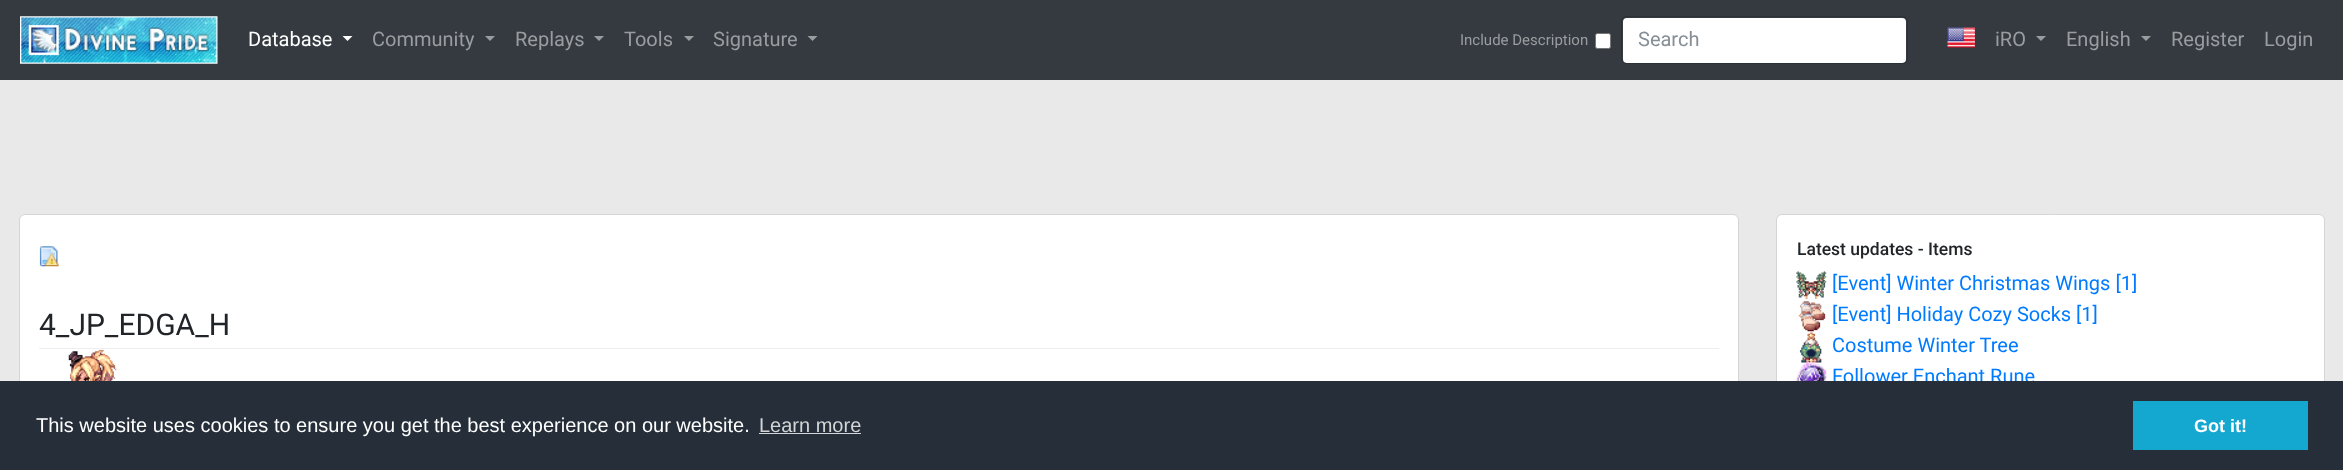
<!DOCTYPE html>
<meta charset="utf-8">
<style>body { margin: 0 } canvas { display: block }</style>
<canvas id="canvas" width="2343" height="470"></canvas>
<img id="img1" src="img_01.png" hidden>
<img id="img2" src="img_02.png" hidden>
<img id="img3" src="img_03.png" hidden>
<img id="img4" src="img_04.png" hidden>
<img id="img5" src="img_05.png" hidden>
<img id="img6" src="img_06.png" hidden>
<img id="img7" src="img_07.png" hidden>
<img id="img8" src="img_08.png" hidden>
<script>
window.onload = function () {
	const canvas = document.getElementById("canvas");
	const ctx = canvas.getContext("2d");
	ctx.miterLimit = 4;
	ctx.fontKerning = "normal";
	function txt(s, x, y) {
		ctx.fillText(s, x, y);
	}
	function fill(x, y, w, h) {
		ctx.fillRect(x, y, w, h);
	}
	function round(x, y, w, h, r) {
		ctx.beginPath();
		ctx.roundRect(x, y, w, h, r);
		ctx.fill();
	}
	function img(id, x, y, w, h) {
		ctx.drawImage(document.getElementById(id), x, y, w, h);
	}

	ctx.fillStyle = "#E9E9E9";
	fill(0, 0, 2343, 470);
	ctx.fillStyle = "#343A40";
	fill(0, 0, 2343, 80);
	img("img1", 20, 16, 198, 48);
	ctx.fillStyle = "#FFFFFF";
	ctx.beginPath();
	ctx.moveTo(342.5, 36);
	ctx.lineTo(352.5, 36);
	ctx.lineTo(347.5, 41);
	ctx.closePath();
	ctx.fill();
	ctx.fillStyle = "#9A9DA0";
	ctx.beginPath();
	ctx.moveTo(485, 36);
	ctx.lineTo(495, 36);
	ctx.lineTo(490, 41);
	ctx.closePath();
	ctx.fill();
	ctx.beginPath();
	ctx.moveTo(594, 36);
	ctx.lineTo(604, 36);
	ctx.lineTo(599, 41);
	ctx.closePath();
	ctx.fill();
	ctx.beginPath();
	ctx.moveTo(684, 36);
	ctx.lineTo(694, 36);
	ctx.lineTo(689, 41);
	ctx.closePath();
	ctx.fill();
	ctx.beginPath();
	ctx.moveTo(807.5, 36);
	ctx.lineTo(817.5, 36);
	ctx.lineTo(812.5, 41);
	ctx.closePath();
	ctx.fill();
	ctx.fillStyle = "#FFFFFF";
	ctx.beginPath();
	ctx.roundRect(1595.5, 33.5, 15, 15, 2);
	ctx.fill();
	ctx.strokeStyle = "#767676";
	ctx.stroke();
	round(1623, 18, 283, 45, 4);
	ctx.beginPath();
	ctx.roundRect(1621.5, 16.5, 286, 47, 4.5);
	ctx.strokeStyle = "#2C3136";
	ctx.stroke();
	img("img2", 1947, 27, 28, 21);
	ctx.fillStyle = "#9A9DA0";
	ctx.beginPath();
	ctx.moveTo(2036, 36);
	ctx.lineTo(2046, 36);
	ctx.lineTo(2041, 41);
	ctx.closePath();
	ctx.fill();
	ctx.beginPath();
	ctx.moveTo(2141, 36);
	ctx.lineTo(2151, 36);
	ctx.lineTo(2146, 41);
	ctx.closePath();
	ctx.fill();
	ctx.fillStyle = "#FFFFFF";
	ctx.beginPath();
	ctx.roundRect(19.5, 214.5, 1719, 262, 5.5);
	ctx.fill();
	ctx.strokeStyle = "#D5D5D5";
	ctx.stroke();
	img("img3", 39, 246, 20, 21);
	ctx.fillStyle = "#EEEEEE";
	fill(39, 348, 1680, 1);
	img("img4", 39, 349, 78, 32);
	ctx.fillStyle = "#FFFFFF";
	ctx.beginPath();
	ctx.roundRect(1776.5, 214.5, 548, 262, 5.5);
	ctx.fill();
	ctx.stroke();
	img("img5", 1796, 271, 31, 28);
	img("img6", 1798, 301, 28, 31);
	img("img7", 1799, 332, 23, 31);
	img("img8", 1796, 362, 31, 19);
	ctx.font = "20px Roboto";
	txt("Database", 248, 46);
	ctx.fillStyle = "#9A9DA0";
	txt("Community", 372, 46);
	txt("Replays", 515, 46);
	txt("Tools", 624, 46);
	txt("Signature", 713, 46);
	ctx.font = "15px Roboto";
	txt("Include Description", 1460, 45);
	ctx.font = "20px Roboto";
	ctx.fillStyle = "#868E96";
	txt("Search", 1638, 46);
	ctx.fillStyle = "#9A9DA0";
	txt("iRO", 1995, 46);
	txt("English", 2066, 46);
	txt("Register", 2171, 46);
	txt("Login", 2264, 46);
	ctx.font = "30px Roboto";
	ctx.fillStyle = "#212529";
	txt("4_JP_EDGA_H", 39, 335);
	ctx.font = "500 17.5px Roboto";
	txt("Latest updates - Items", 1797, 255);
	ctx.font = "20px Roboto";
	ctx.fillStyle = "#007BFF";
	txt("[Event] Winter Christmas Wings [1]", 1832, 290);
	txt("[Event] Holiday Cozy Socks [1]", 1832, 321);
	txt("Costume Winter Tree", 1832, 352);
	txt("Follower Enchant Rune", 1832, 383);
	ctx.fillStyle = "#252E39";
	fill(0, 381, 2343, 89);
	ctx.font = "20px Liberation Sans";
	ctx.fillStyle = "#FFFFFF";
	txt("This website uses cookies to ensure you get the best experience on our website.", 36, 432);
	ctx.fillStyle = "#D3D5D7";
	txt("Learn more", 759, 432);
	fill(759, 433, 102, 1);
	ctx.fillStyle = "#14A7D0";
	fill(2133, 401, 175, 49);
	ctx.font = "bold 18px Liberation Sans";
	ctx.fillStyle = "#FFFFFF";
	txt("Got it!", 2194, 432);
};
</script>
